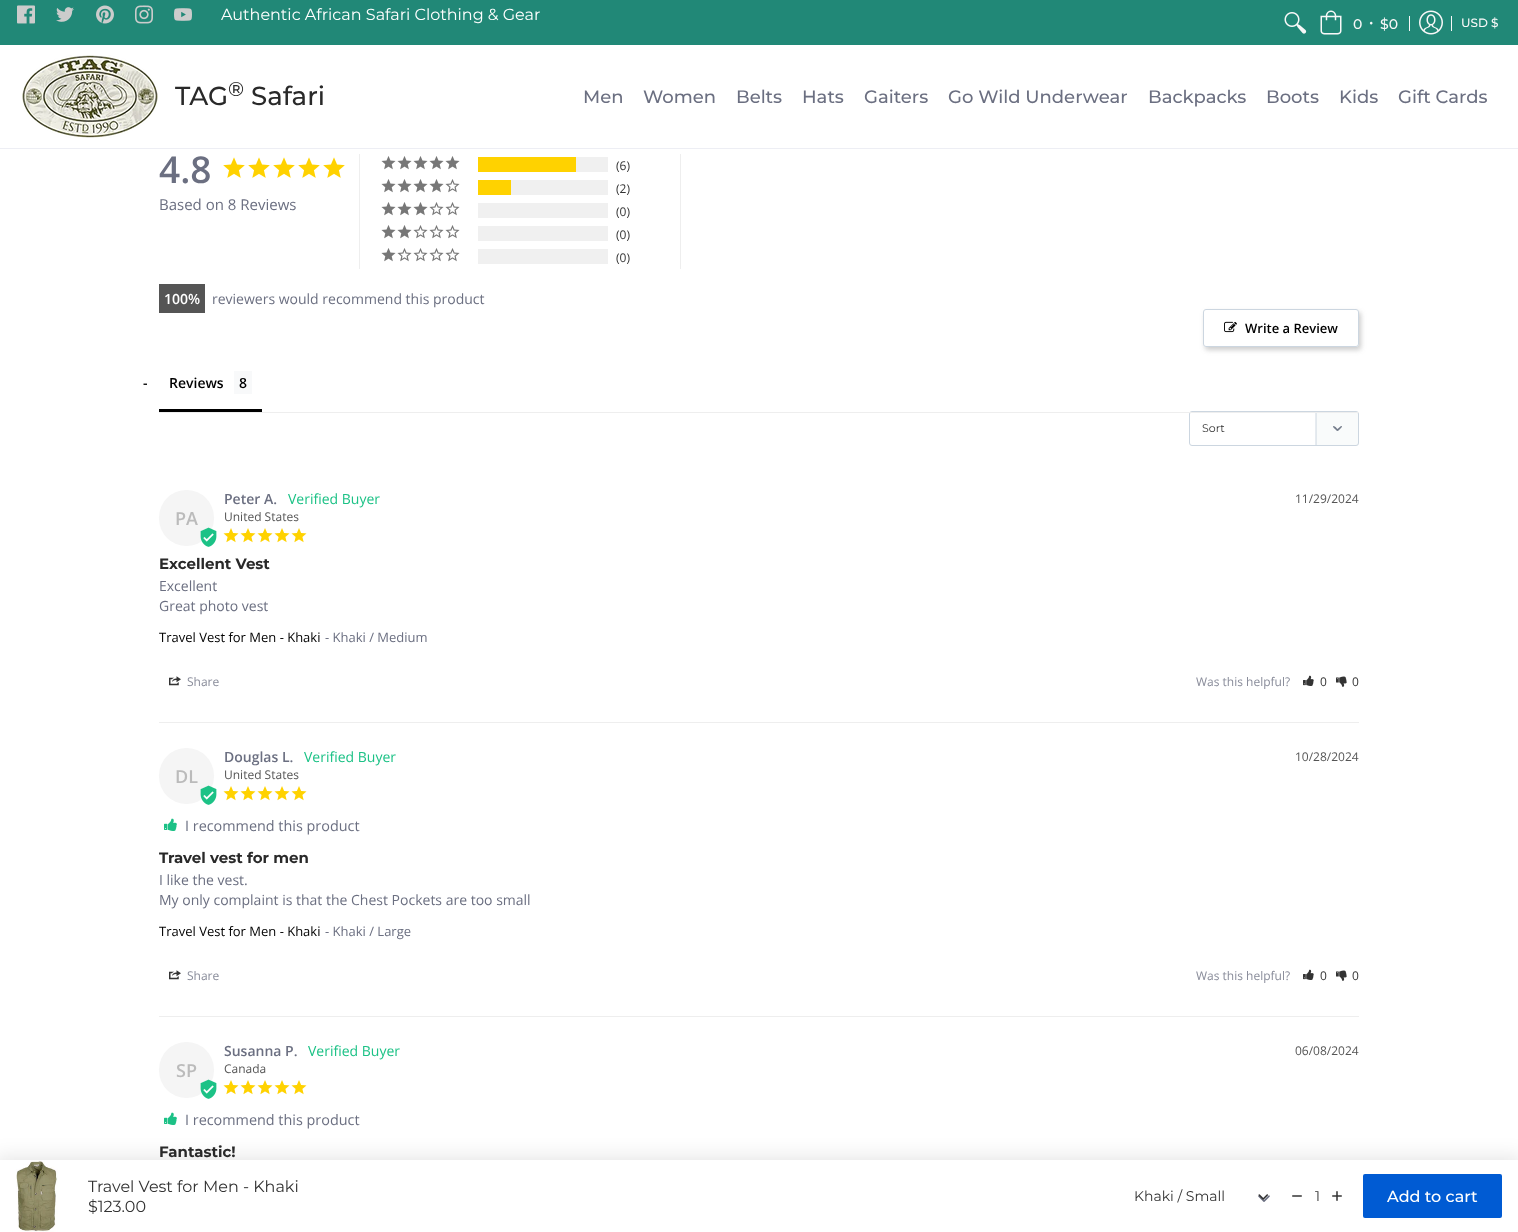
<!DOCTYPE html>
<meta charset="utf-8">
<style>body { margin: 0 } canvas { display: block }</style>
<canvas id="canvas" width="1518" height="1232"></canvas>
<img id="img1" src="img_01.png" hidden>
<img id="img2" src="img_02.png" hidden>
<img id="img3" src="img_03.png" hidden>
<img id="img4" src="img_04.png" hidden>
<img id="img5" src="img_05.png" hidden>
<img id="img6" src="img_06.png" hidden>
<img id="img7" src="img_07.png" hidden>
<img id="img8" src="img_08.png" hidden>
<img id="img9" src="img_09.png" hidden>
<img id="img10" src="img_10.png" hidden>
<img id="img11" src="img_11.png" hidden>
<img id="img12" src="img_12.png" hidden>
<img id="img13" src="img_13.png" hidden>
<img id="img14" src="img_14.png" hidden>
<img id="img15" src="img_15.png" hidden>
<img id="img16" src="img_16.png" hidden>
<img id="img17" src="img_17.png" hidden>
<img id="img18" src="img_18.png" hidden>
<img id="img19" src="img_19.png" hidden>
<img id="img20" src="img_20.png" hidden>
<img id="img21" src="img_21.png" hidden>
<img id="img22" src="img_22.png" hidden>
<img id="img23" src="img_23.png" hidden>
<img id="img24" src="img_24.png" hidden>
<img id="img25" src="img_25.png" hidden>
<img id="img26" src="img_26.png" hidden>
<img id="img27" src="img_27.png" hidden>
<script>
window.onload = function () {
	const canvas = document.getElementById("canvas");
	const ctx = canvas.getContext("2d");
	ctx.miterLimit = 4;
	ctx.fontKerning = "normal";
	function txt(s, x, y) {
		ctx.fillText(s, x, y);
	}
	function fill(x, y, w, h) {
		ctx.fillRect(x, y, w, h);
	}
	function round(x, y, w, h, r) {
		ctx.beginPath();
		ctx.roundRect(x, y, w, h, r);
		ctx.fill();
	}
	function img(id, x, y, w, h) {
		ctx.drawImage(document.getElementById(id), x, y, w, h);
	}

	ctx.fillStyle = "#FFFFFF";
	fill(0, 0, 1518, 1232);
	ctx.fillStyle = "#218877";
	fill(0, 0, 1518, 45);
	img("img1", 17, 5, 18, 19);
	img("img2", 56, 7, 18, 15);
	img("img3", 96, 5, 18, 19);
	img("img4", 135, 5, 18, 19);
	img("img5", 174, 8, 18, 13);
	img("img6", 1284, 12, 23, 22);
	img("img7", 1320, 10, 22, 25);
	ctx.fillStyle = "#F8F8F8";
	fill(1409, 16, 1, 15);
	img("img8", 1419, 10, 24, 25);
	fill(1451, 16, 1, 15);
	ctx.fillStyle = "#EDEEF4";
	fill(0, 148, 1518, 1);
	img("img9", 22, 55, 136, 83);
	img("img10", 223, 157, 22, 21);
	img("img10", 248, 157, 22, 21);
	img("img10", 273, 157, 22, 21);
	img("img10", 298, 157, 22, 21);
	img("img10", 323, 157, 22, 21);
	ctx.fillStyle = "#EEEEEE";
	fill(680, 154, 1, 115);
	fill(359, 154, 1, 115);
	img("img11", 381, 156, 79, 14);
	ctx.fillStyle = "#F0F0F0";
	fill(576, 157, 32, 15);
	ctx.fillStyle = "#FFD200";
	fill(478, 157, 98, 15);
	img("img12", 381, 179, 79, 14);
	ctx.fillStyle = "#F0F0F0";
	fill(511, 180, 97, 15);
	ctx.fillStyle = "#FFD200";
	fill(478, 180, 33, 15);
	img("img13", 381, 202, 79, 14);
	ctx.fillStyle = "#F0F0F0";
	fill(478, 203, 130, 15);
	img("img14", 381, 225, 79, 14);
	fill(478, 226, 130, 15);
	img("img15", 381, 248, 79, 14);
	fill(478, 249, 130, 15);
	ctx.fillStyle = "#555555";
	fill(159, 284, 46, 29);
	ctx.save();
	ctx.beginPath();
	ctx.moveTo(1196, 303);
	ctx.lineTo(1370, 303);
	ctx.lineTo(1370, 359);
	ctx.lineTo(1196, 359);
	ctx.closePath();
	ctx.moveTo(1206, 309);
	ctx.lineTo(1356, 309);
	ctx.bezierCurveTo(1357.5, 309, 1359, 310.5, 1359, 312);
	ctx.lineTo(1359, 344);
	ctx.bezierCurveTo(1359, 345.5, 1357.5, 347, 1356, 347);
	ctx.lineTo(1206, 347);
	ctx.bezierCurveTo(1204.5, 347, 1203, 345.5, 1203, 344);
	ctx.lineTo(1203, 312);
	ctx.bezierCurveTo(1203, 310.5, 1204.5, 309, 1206, 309);
	ctx.closePath();
	ctx.clip("evenodd");
	ctx.fillStyle = "rgba(136, 136, 136, 0.42)";
	ctx.filter = "blur(2.5px)";
	ctx.beginPath();
	ctx.roundRect(1205, 312, 156, 38, 3);
	ctx.fill();
	ctx.filter = "none";
	ctx.restore();
	ctx.beginPath();
	ctx.roundRect(1203.5, 309.5, 155, 37, 2.5);
	ctx.strokeStyle = "#CCD6E0";
	ctx.stroke();
	img("img16", 1224, 321, 13, 12);
	ctx.fillStyle = "#F9FBFB";
	ctx.beginPath();
	ctx.roundRect(1316, 411, 43, 35, [0, 3, 3, 0]);
	ctx.fill();
	ctx.save();
	ctx.beginPath();
	ctx.roundRect(1189, 411, 170, 35, 3);
	ctx.clip();
	ctx.beginPath();
	ctx.moveTo(1316, 453);
	ctx.lineTo(1316, 403);
	ctx.lineCap = "square";
	ctx.stroke();
	ctx.restore();
	ctx.fillStyle = "#757D8B";
	ctx.beginPath();
	ctx.moveTo(1341, 426);
	ctx.lineTo(1341.5, 426);
	ctx.bezierCurveTo(1343, 426.5, 1340.5, 428.5, 1340.5, 428.5);
	ctx.bezierCurveTo(1340, 429, 1338, 431.5, 1337, 431);
	ctx.lineTo(1335, 429);
	ctx.bezierCurveTo(1335, 429, 1332, 426.5, 1333.5, 426);
	ctx.bezierCurveTo(1334.5, 425.5, 1337, 428.5, 1337.5, 429);
	ctx.closePath();
	ctx.fill();
	ctx.beginPath();
	ctx.roundRect(1189.5, 411.5, 169, 34, 2.5);
	ctx.stroke();
	ctx.fillStyle = "#EEEEEE";
	fill(159, 412, 1200, 1);
	ctx.fillStyle = "#000000";
	fill(159, 409, 103, 3);
	ctx.fillStyle = "#F8F9FA";
	fill(234, 371, 18, 23);
	ctx.fillStyle = "#F5F5F5";
	round(159, 490, 55, 56, 27.5);
	img("img17", 200, 527, 17, 20);
	img("img18", 223, 528, 16, 15);
	img("img18", 240, 528, 16, 15);
	img("img18", 257, 528, 16, 15);
	img("img18", 274, 528, 16, 15);
	img("img18", 291, 528, 16, 15);
	img("img19", 169, 676, 12, 10);
	img("img20", 1303, 675, 11, 11);
	img("img21", 1336, 676, 11, 11);
	ctx.fillStyle = "#EEEEEE";
	fill(159, 722, 1200, 1);
	ctx.fillStyle = "#F5F5F5";
	round(159, 748, 55, 56, 27.5);
	img("img17", 200, 785, 17, 20);
	img("img18", 223, 786, 16, 15);
	img("img18", 240, 786, 16, 15);
	img("img18", 257, 786, 16, 15);
	img("img18", 274, 786, 16, 15);
	img("img18", 291, 786, 16, 15);
	img("img22", 164, 818, 13, 13);
	img("img19", 169, 970, 12, 10);
	img("img20", 1303, 969, 11, 11);
	img("img21", 1336, 970, 11, 11);
	ctx.fillStyle = "#EEEEEE";
	fill(159, 1016, 1200, 1);
	ctx.fillStyle = "#F5F5F5";
	round(159, 1042, 55, 56, 27.5);
	img("img17", 200, 1079, 17, 20);
	img("img18", 223, 1080, 16, 15);
	img("img18", 240, 1080, 16, 15);
	img("img18", 257, 1080, 16, 15);
	img("img18", 274, 1080, 16, 15);
	img("img18", 291, 1080, 16, 15);
	img("img22", 164, 1112, 13, 13);
	ctx.fillStyle = "rgba(0, 0, 0, 0.1)";
	ctx.filter = "blur(10px)";
	ctx.beginPath();
	ctx.rect(-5, 1157, 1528, 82);
	ctx.fill();
	ctx.filter = "none";
	ctx.fillStyle = "#FFFFFF";
	fill(0, 1160, 1518, 72);
	img("img23", 16, 1160, 42, 72);
	img("img24", 1258, 1195, 12, 7);
	img("img25", 1258, 1194, 10, 6);
	img("img26", 1292, 1195, 10, 2);
	img("img27", 1332, 1191, 10, 10);
	ctx.fillStyle = "#005BD3";
	round(1363, 1174, 139, 44, 2);
	ctx.font = "16px Montserrat";
	ctx.fillStyle = "#FFFFFF";
	txt("Authentic African Safari Clothing & Gear", 221, 20);
	ctx.font = "500 14px Montserrat";
	ctx.fillStyle = "#F8F8F8";
	txt("0", 1353, 29);
	txt("•", 1369, 27);
	txt("$0", 1380, 29);
	ctx.font = "500 12px Montserrat";
	txt("USD $", 1461, 27);
	ctx.font = "500 26px Montserrat";
	ctx.fillStyle = "#292929";
	txt("TAG", 175, 105);
	ctx.font = "500 20px Montserrat";
	txt("®", 228, 96);
	ctx.font = "500 26px Montserrat";
	txt("Safari", 251, 105);
	ctx.font = "500 18px Montserrat";
	ctx.fillStyle = "#6B6F81";
	txt("Men", 583, 103);
	txt("Women", 643, 103);
	txt("Belts", 736, 103);
	txt("Hats", 802, 103);
	txt("Gaiters", 864, 103);
	txt("Go Wild Underwear", 948, 103);
	txt("Backpacks", 1148, 103);
	txt("Boots", 1266, 103);
	txt("Kids", 1339, 103);
	txt("Gift Cards", 1398, 103);
	ctx.font = "600 37px Open Sans";
	txt("4.8", 159, 183);
	ctx.font = "15px Open Sans";
	txt("Based on 8 Reviews", 159, 210);
	ctx.font = "12px Open Sans";
	ctx.fillStyle = "#333333";
	txt("(6)", 616, 170);
	txt("(2)", 616, 193);
	txt("(0)", 616, 216);
	txt("(0)", 616, 239);
	txt("(0)", 616, 262);
	ctx.font = "600 14px Open Sans";
	ctx.fillStyle = "#FFFFFF";
	txt("100%", 164, 304);
	ctx.font = "14px Open Sans";
	ctx.fillStyle = "#6B6F81";
	txt("reviewers would recommend this product", 212, 304);
	ctx.font = "600 13px Open Sans";
	ctx.fillStyle = "#000000";
	txt("Write a Review", 1245, 333);
	ctx.font = "600 14px Open Sans";
	txt("-", 143, 388);
	txt("Reviews", 169, 388);
	txt("8", 239, 388);
	ctx.font = "11px Montserrat";
	ctx.fillStyle = "#333333";
	txt("Sort", 1202, 432);
	ctx.font = "600 14px Open Sans";
	ctx.fillStyle = "#6B6F81";
	txt("Peter A.", 224, 504);
	ctx.font = "14px Open Sans";
	ctx.fillStyle = "#1CC286";
	txt("Verified Buyer", 288, 504);
	ctx.font = "12px Open Sans";
	ctx.fillStyle = "#555555";
	txt("11/29/2024", 1295, 503);
	ctx.font = "600 18px Open Sans";
	ctx.fillStyle = "#BBBBBB";
	txt("PA", 175, 525);
	ctx.font = "12px Open Sans";
	ctx.fillStyle = "#555555";
	txt("United States", 224, 521);
	ctx.font = "bold 15px Montserrat";
	ctx.fillStyle = "#292929";
	txt("Excellent Vest", 159, 569);
	ctx.font = "14px Open Sans";
	ctx.fillStyle = "#6B6F81";
	txt("Excellent", 159, 591);
	txt("Great photo vest", 159, 611);
	ctx.font = "13px Open Sans";
	ctx.fillStyle = "#000000";
	txt("Travel Vest for Men - Khaki", 159, 642);
	ctx.fillStyle = "#6B6F81";
	txt("- Khaki / Medium", 325, 642);
	ctx.font = "12px Open Sans";
	ctx.fillStyle = "#898C9A";
	txt("Share", 187, 686);
	txt("Was this helpful?", 1196, 686);
	ctx.fillStyle = "#333333";
	txt("0", 1320, 686);
	txt("0", 1352, 686);
	ctx.font = "600 14px Open Sans";
	ctx.fillStyle = "#6B6F81";
	txt("Douglas L.", 224, 762);
	ctx.font = "14px Open Sans";
	ctx.fillStyle = "#1CC286";
	txt("Verified Buyer", 304, 762);
	ctx.font = "12px Open Sans";
	ctx.fillStyle = "#555555";
	txt("10/28/2024", 1295, 761);
	ctx.font = "600 18px Open Sans";
	ctx.fillStyle = "#BBBBBB";
	txt("DL", 175, 783);
	ctx.font = "12px Open Sans";
	ctx.fillStyle = "#555555";
	txt("United States", 224, 779);
	ctx.font = "14.4px Open Sans";
	ctx.fillStyle = "#6B6F81";
	txt("I recommend this product", 185, 831);
	ctx.font = "bold 15px Montserrat";
	ctx.fillStyle = "#292929";
	txt("Travel vest for men", 159, 863);
	ctx.font = "14px Open Sans";
	ctx.fillStyle = "#6B6F81";
	txt("I like the vest.", 159, 885);
	txt("My only complaint is that the Chest Pockets are too small", 159, 905);
	ctx.font = "13px Open Sans";
	ctx.fillStyle = "#000000";
	txt("Travel Vest for Men - Khaki", 159, 936);
	ctx.fillStyle = "#6B6F81";
	txt("- Khaki / Large", 325, 936);
	ctx.font = "12px Open Sans";
	ctx.fillStyle = "#898C9A";
	txt("Share", 187, 980);
	txt("Was this helpful?", 1196, 980);
	ctx.fillStyle = "#333333";
	txt("0", 1320, 980);
	txt("0", 1352, 980);
	ctx.font = "600 14px Open Sans";
	ctx.fillStyle = "#6B6F81";
	txt("Susanna P.", 224, 1056);
	ctx.font = "14px Open Sans";
	ctx.fillStyle = "#1CC286";
	txt("Verified Buyer", 308, 1056);
	ctx.font = "12px Open Sans";
	ctx.fillStyle = "#555555";
	txt("06/08/2024", 1295, 1055);
	ctx.font = "600 18px Open Sans";
	ctx.fillStyle = "#BBBBBB";
	txt("SP", 176, 1077);
	ctx.font = "12px Open Sans";
	ctx.fillStyle = "#555555";
	txt("Canada", 224, 1073);
	ctx.font = "14.4px Open Sans";
	ctx.fillStyle = "#6B6F81";
	txt("I recommend this product", 185, 1125);
	ctx.font = "bold 15px Montserrat";
	ctx.fillStyle = "#292929";
	txt("Fantastic!", 159, 1157);
	ctx.font = "16px Montserrat";
	ctx.fillStyle = "#333333";
	txt("Travel Vest for Men - Khaki", 88, 1192);
	txt("$123.00", 88, 1212);
	ctx.font = "14px Montserrat";
	txt("Khaki / Small", 1134, 1201);
	txt("1", 1315, 1201);
	ctx.font = "500 16px Montserrat";
	ctx.fillStyle = "#FFFFFF";
	txt("Add to cart", 1387, 1202);
};
</script>
